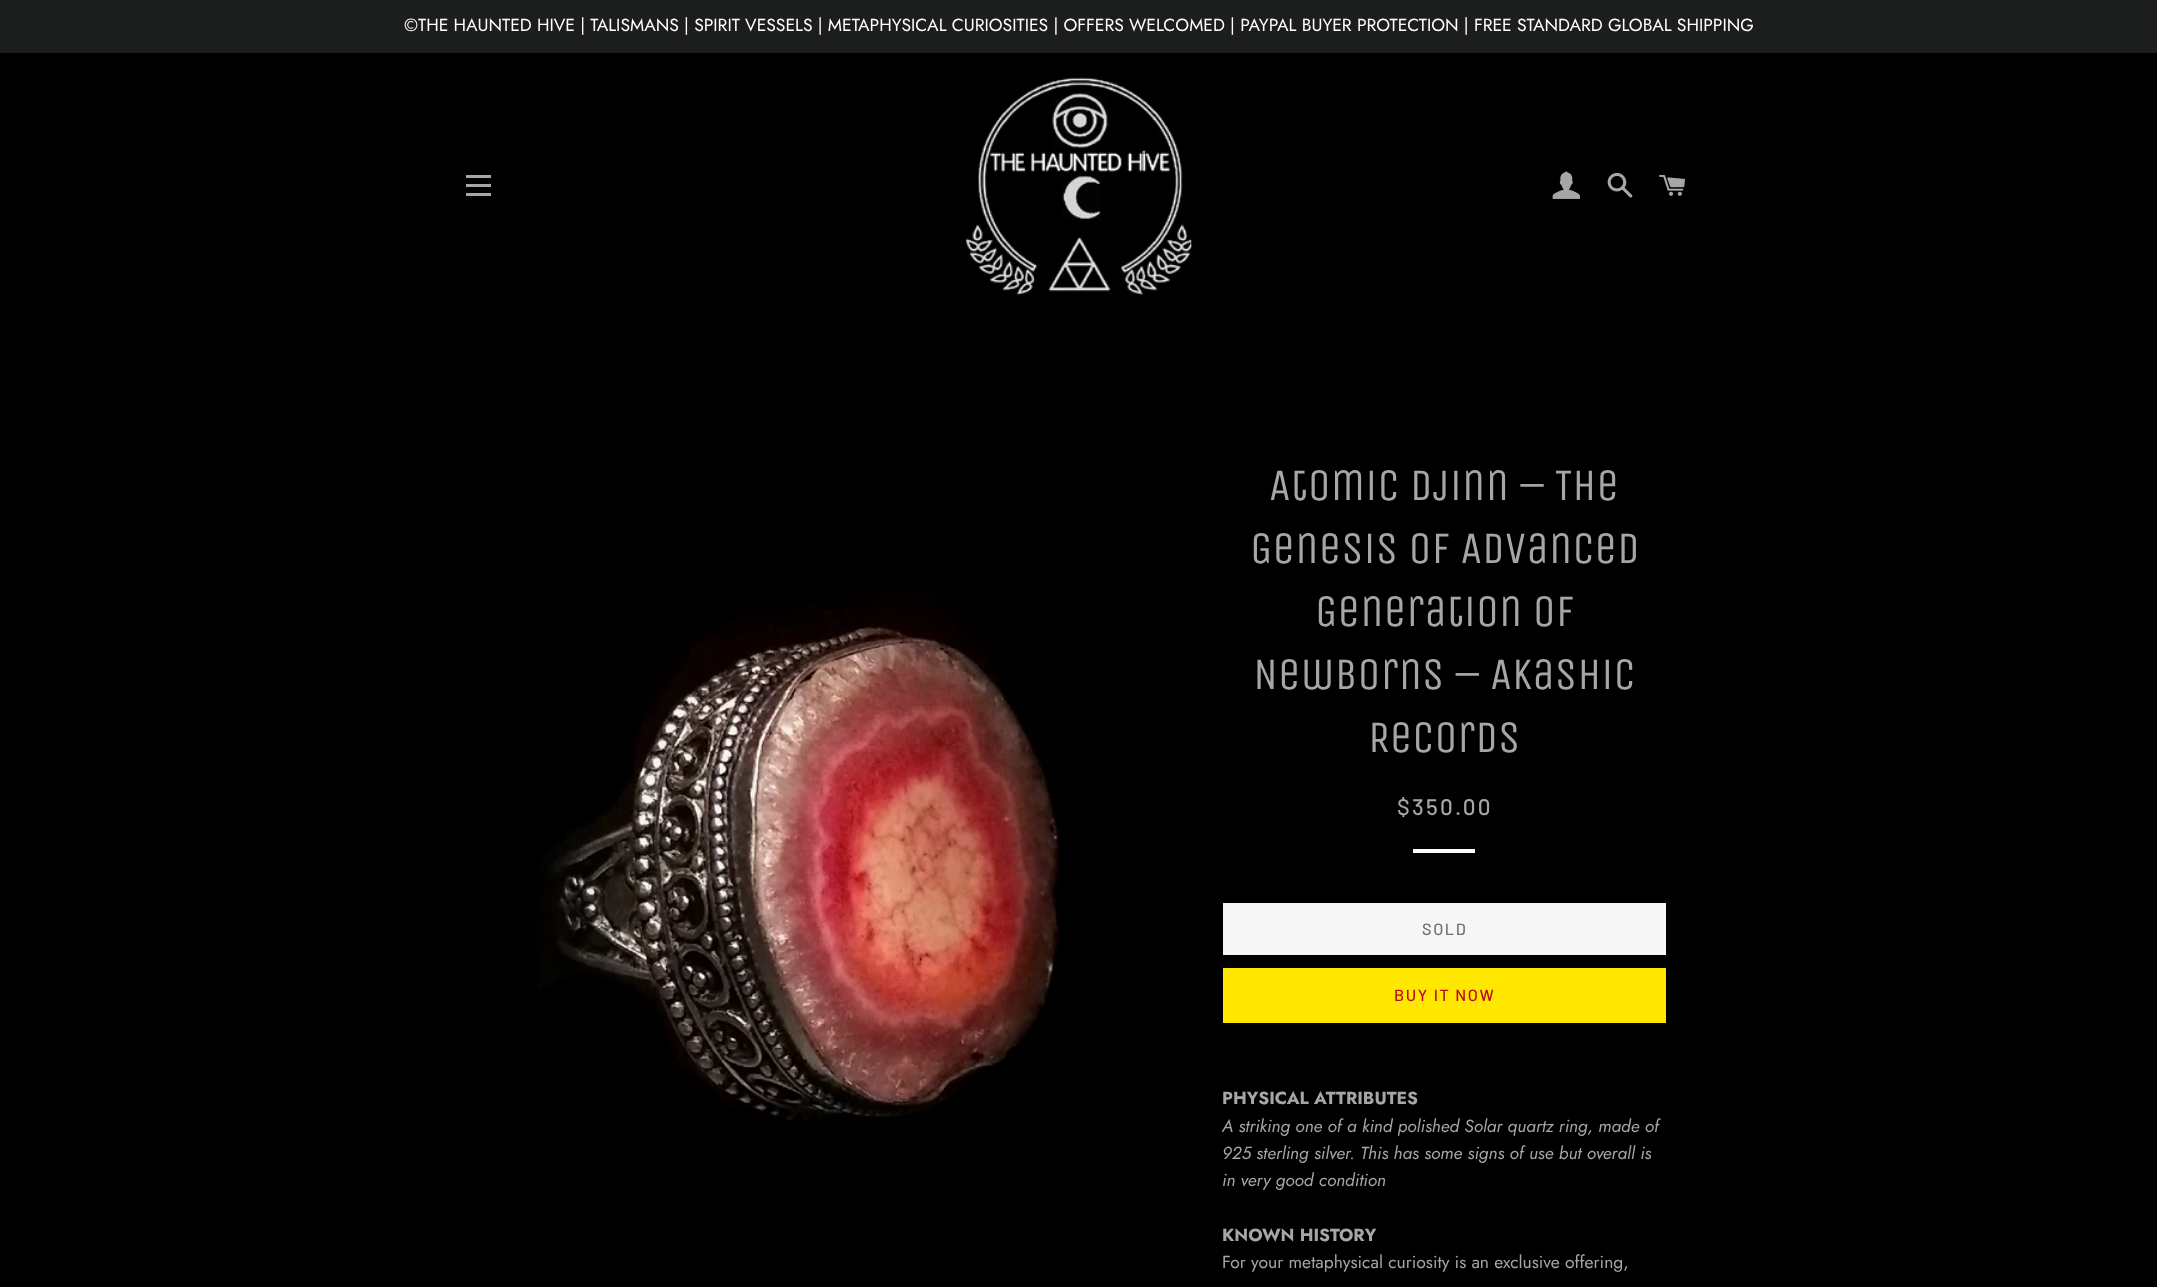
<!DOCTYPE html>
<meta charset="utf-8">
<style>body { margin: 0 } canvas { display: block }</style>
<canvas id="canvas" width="2157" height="1287"></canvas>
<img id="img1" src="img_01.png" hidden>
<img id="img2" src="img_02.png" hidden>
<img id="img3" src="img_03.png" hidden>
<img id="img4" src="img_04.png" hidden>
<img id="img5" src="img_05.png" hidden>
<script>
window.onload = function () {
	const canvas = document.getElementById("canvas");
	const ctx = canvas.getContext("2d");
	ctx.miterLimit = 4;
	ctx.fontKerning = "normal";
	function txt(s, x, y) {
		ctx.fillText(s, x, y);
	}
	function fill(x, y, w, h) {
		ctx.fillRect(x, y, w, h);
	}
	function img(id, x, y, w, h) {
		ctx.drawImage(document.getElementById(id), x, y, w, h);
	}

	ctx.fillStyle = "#000000";
	fill(0, 0, 2157, 1287);
	ctx.fillStyle = "#1C1D1D";
	fill(0, 0, 2157, 53);
	ctx.fillStyle = "#A6A6A6";
	fill(466, 175, 25, 3);
	fill(466, 184, 25, 3);
	fill(466, 193, 25, 3);
	img("img1", 966, 77, 226, 219);
	img("img2", 1552, 171, 28, 28);
	img("img3", 1607, 172, 26, 26);
	img("img4", 1659, 174, 26, 22);
	img("img5", 537, 591, 523, 530);
	ctx.fillStyle = "#FFFFFF";
	fill(1413, 849, 62, 4);
	ctx.fillStyle = "#F6F6F6";
	fill(1223, 903, 443, 52);
	ctx.fillStyle = "#FFE700";
	fill(1223, 968, 443, 55);
	ctx.font = "17.5px Jost";
	ctx.fillStyle = "#FFFFFF";
	txt("©THE HAUNTED HIVE | TALISMANS | SPIRIT VESSELS | METAPHYSICAL CURIOSITIES | OFFERS WELCOMED | PAYPAL BUYER PROTECTION | FREE STANDARD GLOBAL SHIPPING", 404, 31);
	ctx.font = "45px Unica One";
	ctx.fillStyle = "#A6A6A6";
	txt("Atomic Djinn – The", 1269, 500);
	txt("Genesis of Advanced", 1250, 563);
	txt("Generation of", 1315, 626);
	txt("Newborns – Akashic", 1253, 689);
	txt("Records", 1368, 752);
	ctx.letterSpacing = "2.25px";
	ctx.font = "500 22.5px Barlow";
	txt("$350.00", 1397, 815);
	ctx.letterSpacing = "1.6px";
	ctx.font = "500 16.25px Barlow";
	ctx.fillStyle = "#717171";
	txt("SOLD", 1422, 935);
	ctx.fillStyle = "#BD081C";
	txt("BUY IT NOW", 1394, 1001);
	ctx.letterSpacing = "0px";
	ctx.font = "bold 17.5px Jost";
	ctx.fillStyle = "#A6A6A6";
	txt("PHYSICAL ATTRIBUTES", 1222, 1104);
	ctx.font = "italic 17.5px Jost";
	txt("A striking one of a kind polished Solar quartz ring, made of", 1222, 1132);
	txt("925 sterling silver. This has some signs of use but overall is", 1222, 1159);
	txt("in very good condition", 1222, 1186);
	ctx.font = "bold 17.5px Jost";
	txt("KNOWN HISTORY", 1222, 1241);
	ctx.font = "17.5px Jost";
	txt("For your metaphysical curiosity is an exclusive offering,", 1222, 1268);
};
</script>
